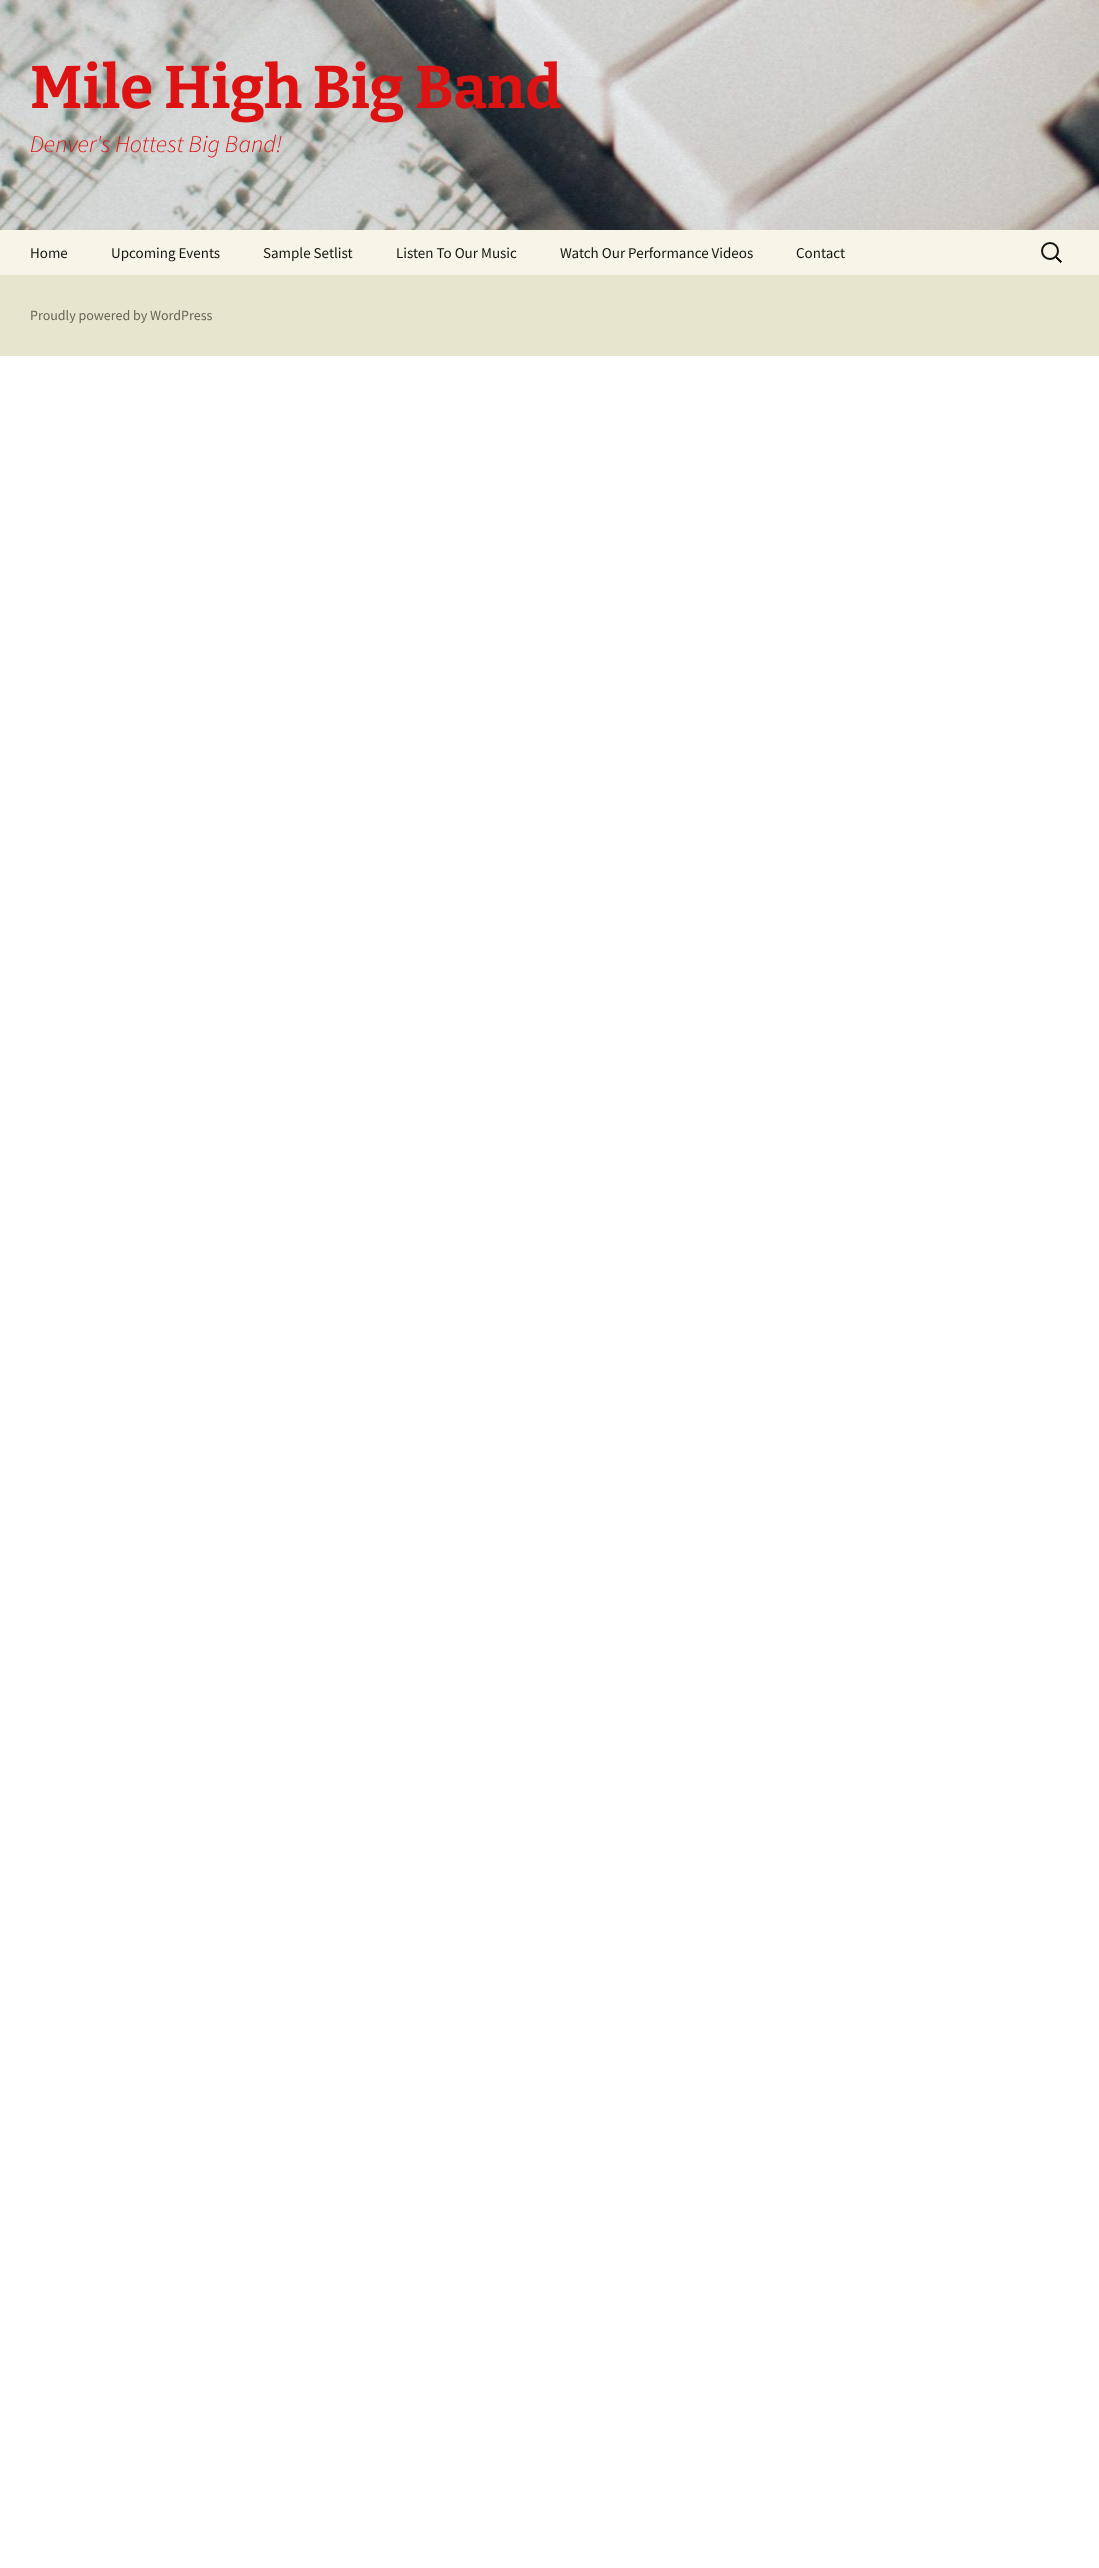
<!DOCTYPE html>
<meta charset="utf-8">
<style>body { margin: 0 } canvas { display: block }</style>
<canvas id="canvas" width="1099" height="2568"></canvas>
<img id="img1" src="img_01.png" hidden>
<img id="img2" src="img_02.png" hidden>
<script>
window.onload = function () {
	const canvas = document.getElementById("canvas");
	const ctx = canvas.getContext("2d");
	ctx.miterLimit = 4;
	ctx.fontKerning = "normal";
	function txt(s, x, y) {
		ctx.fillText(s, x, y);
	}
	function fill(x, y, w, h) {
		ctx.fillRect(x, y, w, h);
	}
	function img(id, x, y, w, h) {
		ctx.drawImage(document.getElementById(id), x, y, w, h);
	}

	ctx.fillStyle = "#FFFFFF";
	fill(0, 0, 1099, 2568);
	img("img1", 0, 0, 1099, 230);
	ctx.fillStyle = "#F7F5E7";
	fill(0, 230, 1099, 45);
	img("img2", 1041, 242, 21, 21);
	ctx.fillStyle = "#E8E5CE";
	fill(0, 275, 1099, 81);
	ctx.font = "100 60px Bitter";
	ctx.fillStyle = "#DD1313";
	txt("Mile High Big Band", 30, 108);
	ctx.font = "italic 300 24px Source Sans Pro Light";
	txt("Denver's Hottest Big Band!", 30, 152);
	ctx.font = "15px Source Sans Pro";
	ctx.fillStyle = "#141412";
	txt("Home", 30, 258);
	txt("Upcoming Events", 111, 258);
	txt("Sample Setlist", 263, 258);
	txt("Listen To Our Music", 396, 258);
	txt("Watch Our Performance Videos", 560, 258);
	txt("Contact", 796, 258);
	ctx.font = "14px Source Sans Pro";
	ctx.fillStyle = "#686758";
	txt("Proudly powered by WordPress", 30, 320);
};
</script>
